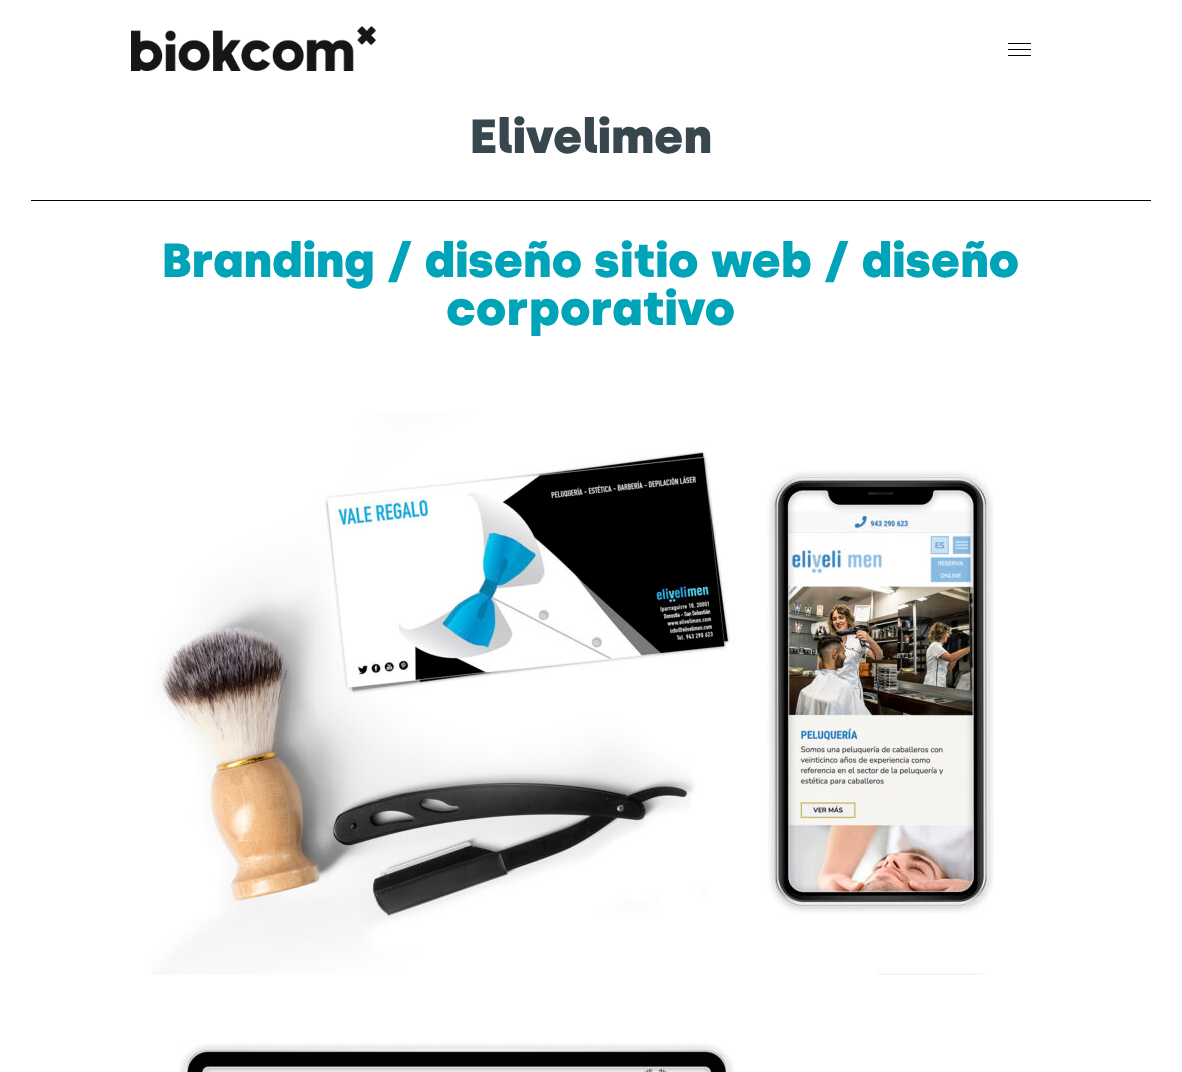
<!DOCTYPE html>
<meta charset="utf-8">
<style>body { margin: 0 } canvas { display: block }</style>
<canvas id="canvas" width="1182" height="1072"></canvas>
<img id="img1" src="img_01.png" hidden>
<img id="img2" src="img_02.png" hidden>
<img id="img3" src="img_03.png" hidden>
<script>
window.onload = function () {
	const canvas = document.getElementById("canvas");
	const ctx = canvas.getContext("2d");
	ctx.miterLimit = 4;
	ctx.fontKerning = "normal";
	function txt(s, x, y) {
		ctx.fillText(s, x, y);
	}
	function fill(x, y, w, h) {
		ctx.fillRect(x, y, w, h);
	}
	function img(id, x, y, w, h) {
		ctx.drawImage(document.getElementById(id), x, y, w, h);
	}

	ctx.fillStyle = "#FFFFFF";
	fill(0, 0, 1182, 1072);
	img("img1", 131, 26, 245, 45);
	ctx.fillStyle = "#000000";
	fill(1008, 43, 23, 1);
	fill(1008, 49, 23, 1);
	fill(1008, 55, 23, 1);
	fill(31, 200, 1120, 1);
	img("img2", 151, 412, 843, 563);
	img("img3", 179, 1043, 555, 29);
	ctx.font = "900 48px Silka";
	ctx.fillStyle = "#37474D";
	txt("Elivelimen", 470, 153);
	ctx.fillStyle = "#00A4B9";
	txt("Branding / diseño sitio web / diseño", 162, 277);
	txt("corporativo", 446, 325);
};
</script>
